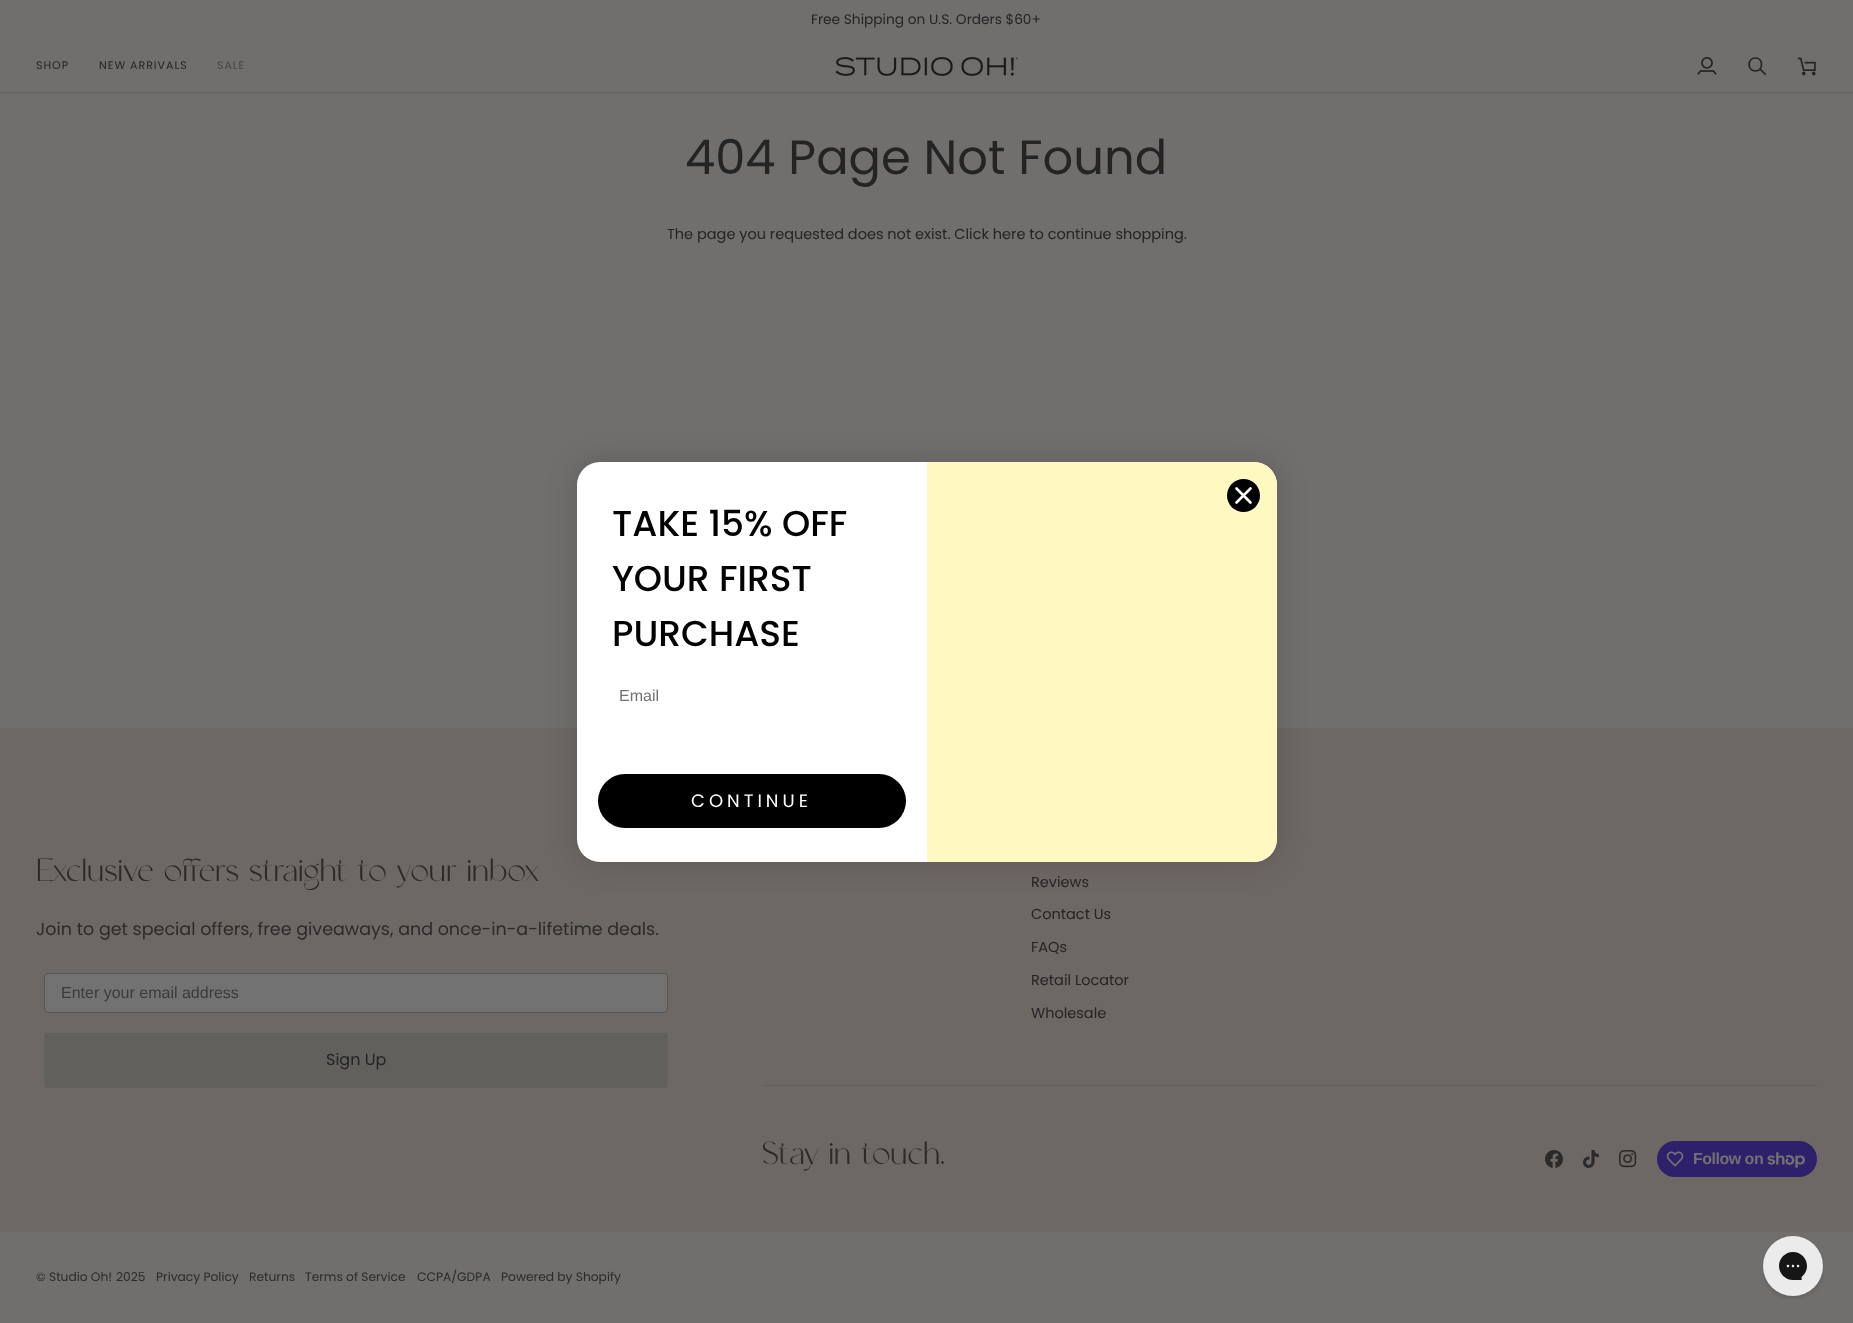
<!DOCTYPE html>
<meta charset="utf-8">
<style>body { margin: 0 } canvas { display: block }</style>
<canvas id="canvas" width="1853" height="1323"></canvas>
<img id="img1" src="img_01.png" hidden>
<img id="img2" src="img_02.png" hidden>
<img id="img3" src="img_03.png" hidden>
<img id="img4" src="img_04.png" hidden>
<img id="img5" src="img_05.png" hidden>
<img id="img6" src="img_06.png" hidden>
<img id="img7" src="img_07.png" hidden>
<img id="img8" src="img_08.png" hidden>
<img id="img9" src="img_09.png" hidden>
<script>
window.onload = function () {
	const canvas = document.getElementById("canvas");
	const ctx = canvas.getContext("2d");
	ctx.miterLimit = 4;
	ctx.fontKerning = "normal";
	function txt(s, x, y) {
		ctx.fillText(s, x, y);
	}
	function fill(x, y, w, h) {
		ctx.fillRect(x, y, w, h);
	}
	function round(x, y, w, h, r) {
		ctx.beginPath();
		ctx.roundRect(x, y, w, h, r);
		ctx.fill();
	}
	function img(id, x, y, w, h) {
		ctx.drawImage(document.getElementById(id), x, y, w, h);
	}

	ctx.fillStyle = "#716F6D";
	fill(0, 0, 1853, 1323);
	ctx.fillStyle = "#626262";
	fill(0, 92, 1853, 1);
	img("img1", 835, 57, 183, 19);
	img("img2", 1697, 57, 20, 18);
	ctx.beginPath();
	ctx.moveTo(1755.5, 71);
	ctx.bezierCurveTo(1763.5, 71, 1763.5, 58, 1755.5, 58);
	ctx.bezierCurveTo(1747, 58, 1747, 71, 1755.5, 71);
	ctx.closePath();
	ctx.moveTo(1765, 74);
	ctx.lineTo(1760, 69);
	ctx.strokeStyle = "#242424";
	ctx.lineWidth = 1.7;
	ctx.lineCap = "square";
	ctx.stroke();
	img("img3", 1797, 57, 19, 19);
	ctx.fillStyle = "#6E6865";
	fill(0, 728, 1853, 504);
	ctx.fillStyle = "rgba(0, 0, 0, 0.15)";
	ctx.filter = "blur(15px)";
	ctx.beginPath();
	ctx.roundRect(577, 462, 700, 400, 23);
	ctx.fill();
	ctx.filter = "none";
	ctx.fillStyle = "#FFFFFF";
	round(577, 462, 700, 400, 23);
	ctx.fillStyle = "#FFF9C1";
	ctx.beginPath();
	ctx.roundRect(927, 462, 350, 400, [0, 23, 23, 0]);
	ctx.fill();
	ctx.fillStyle = "#000000";
	ctx.beginPath();
	ctx.arc(1243.5, 495.5, 16.5, 0, Math.PI * 2);
	ctx.fill();
	ctx.beginPath();
	ctx.moveTo(1236.5, 488.5);
	ctx.lineTo(1250.5, 502.5);
	ctx.moveTo(1236.5, 502.5);
	ctx.lineTo(1250.5, 488.5);
	ctx.closePath();
	ctx.strokeStyle = "#FFFFFF";
	ctx.lineWidth = 2.6;
	ctx.lineCap = "round";
	ctx.lineJoin = "round";
	ctx.stroke();
	round(598, 774, 308, 54, 27);
	ctx.fillStyle = "#727272";
	ctx.beginPath();
	ctx.roundRect(44.5, 973.5, 623, 39, 3.5);
	ctx.fill();
	ctx.strokeStyle = "#54575A";
	ctx.lineWidth = 1;
	ctx.lineJoin = "miter";
	ctx.stroke();
	ctx.fillStyle = "#62605D";
	round(44, 1033, 624, 55, 4);
	ctx.fillStyle = "#625E5B";
	fill(762, 1085, 1055, 1);
	img("img4", 1545, 1150, 18, 18);
	img("img5", 1583, 1150, 16, 18);
	img("img6", 1619, 1150, 18, 18);
	ctx.fillStyle = "#2E206A";
	round(1657, 1141, 160, 36, 18);
	img("img7", 1666, 1151, 18, 16);
	img("img8", 1767, 1152, 38, 16);
	img("img9", 1762, 1236, 62, 63);
	ctx.font = "13.75px Poppins";
	ctx.fillStyle = "#242424";
	txt("Free Shipping on U.S. Orders $60+", 811, 24);
	ctx.letterSpacing = "1px";
	ctx.font = "11px Poppins";
	txt("SHOP", 36, 69);
	txt("NEW ARRIVALS", 99, 69);
	ctx.fillStyle = "#484440";
	txt("SALE", 217, 69);
	ctx.letterSpacing = "0px";
	ctx.font = "48px Poppins";
	ctx.fillStyle = "#242424";
	txt("404 Page Not Found", 685, 174);
	ctx.font = "14.5px Poppins";
	txt("The page you requested does not exist. Click here to continue shopping.", 667, 239);
	ctx.font = "500 36px Poppins";
	ctx.fillStyle = "#020202";
	txt("TAKE 15% OFF", 612, 536);
	txt("YOUR FIRST", 612, 591);
	txt("PURCHASE", 612, 646);
	ctx.font = "16px Liberation Sans";
	ctx.fillStyle = "#727272";
	txt("Email", 619, 701);
	ctx.letterSpacing = "4px";
	ctx.font = "18px Poppins";
	ctx.fillStyle = "#FFFFFF";
	txt("CONTINUE", 691, 807);
	ctx.letterSpacing = "0px";
	ctx.font = "32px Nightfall";
	ctx.fillStyle = "#2B2B2B";
	txt("Exclusive offers straight to your inbox", 36, 881);
	ctx.font = "17.5px Poppins";
	txt("Join to get special offers, free giveaways, and once-in-a-lifetime deals.", 36, 935);
	ctx.font = "16px Liberation Sans";
	ctx.fillStyle = "#3B3B3B";
	txt("Enter your email address", 61, 998);
	ctx.font = "16px Poppins";
	ctx.fillStyle = "#242424";
	txt("Sign Up", 326, 1065);
	ctx.font = "14.5px Poppins";
	txt("Reviews", 1031, 887);
	txt("Contact Us", 1031, 919);
	txt("FAQs", 1031, 952);
	txt("Retail Locator", 1031, 985);
	txt("Wholesale", 1031, 1018);
	ctx.font = "32px Nightfall";
	ctx.fillStyle = "#2B2B2B";
	txt("Stay in touch.", 762, 1164);
	ctx.letterSpacing = "-0.5px";
	ctx.font = "bold 16px Liberation Sans";
	ctx.fillStyle = "#727272";
	txt("Follow on", 1693, 1164);
	ctx.letterSpacing = "0px";
	ctx.font = "12.25px Poppins";
	ctx.fillStyle = "#2B2B2B";
	txt("© Studio Oh!", 36, 1281);
	txt("2025", 116, 1281);
	txt("Privacy Policy", 156, 1281);
	txt("Returns", 249, 1281);
	txt("Terms of Service", 305, 1281);
	txt("CCPA/GDPA", 417, 1281);
	txt("Powered by Shopify", 501, 1281);
};
</script>
